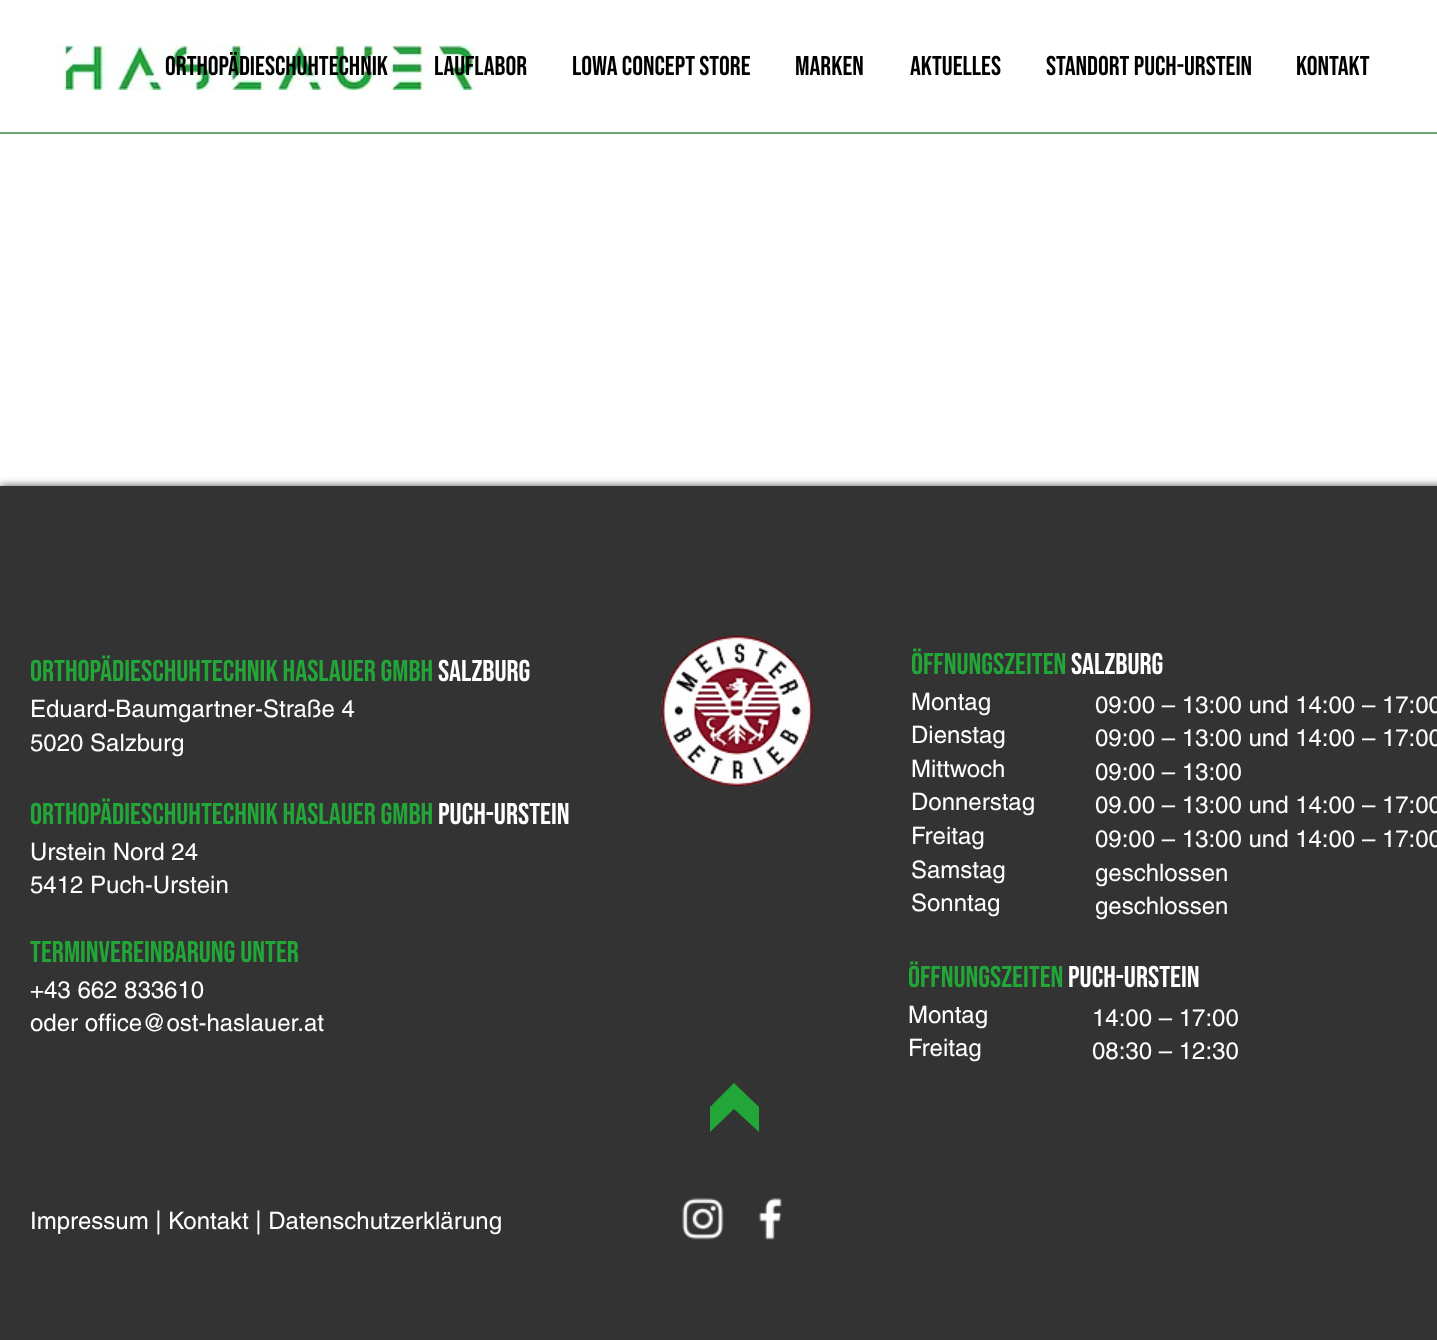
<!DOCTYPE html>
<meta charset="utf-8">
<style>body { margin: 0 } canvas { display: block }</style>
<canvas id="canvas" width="1437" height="1340"></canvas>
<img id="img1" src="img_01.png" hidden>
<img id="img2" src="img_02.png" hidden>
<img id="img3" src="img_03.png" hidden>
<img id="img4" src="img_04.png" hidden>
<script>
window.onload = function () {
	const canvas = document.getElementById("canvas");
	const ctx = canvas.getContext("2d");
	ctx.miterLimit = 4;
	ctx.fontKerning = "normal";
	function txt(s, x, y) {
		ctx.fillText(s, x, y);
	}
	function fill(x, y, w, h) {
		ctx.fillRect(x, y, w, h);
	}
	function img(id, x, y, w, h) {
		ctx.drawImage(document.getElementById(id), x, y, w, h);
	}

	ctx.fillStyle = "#FFFFFF";
	fill(0, 0, 1437, 1340);
	ctx.strokeStyle = "#6DA476";
	ctx.lineWidth = 2;
	ctx.strokeRect(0, 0, 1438, 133);
	fill(0, 0, 1437, 132);
	img("img1", 57, 45, 421, 45);
	ctx.fillStyle = "rgba(0, 0, 0, 0.7)";
	ctx.filter = "blur(4px)";
	ctx.beginPath();
	ctx.rect(0, 486, 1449, 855);
	ctx.fill();
	ctx.filter = "none";
	ctx.fillStyle = "#333333";
	fill(0, 486, 1437, 854);
	img("img2", 661, 636, 153, 150);
	ctx.fillStyle = "#23A638";
	ctx.beginPath();
	ctx.moveTo(759, 1132);
	ctx.lineTo(734, 1109);
	ctx.lineTo(710, 1132);
	ctx.lineTo(710, 1107);
	ctx.lineTo(734, 1083);
	ctx.lineTo(759, 1107);
	ctx.closePath();
	ctx.fill();
	img("img3", 682, 1198, 42, 42);
	img("img4", 758, 1198, 24, 42);
	ctx.font = "27px Bebas Neue";
	ctx.fillStyle = "#000000";
	txt("ORTHOPÄDIESCHUHTECHNIK", 165, 75);
	txt("LAUFLABOR", 434, 75);
	txt("LOWA CONCEPT STORE", 572, 75);
	txt("MARKEN", 795, 75);
	txt("AKTUELLES", 910, 75);
	txt("STANDORT PUCH-URSTEIN", 1046, 75);
	txt("KONTAKT", 1296, 75);
	ctx.font = "30px Bebas Neue";
	ctx.fillStyle = "#23A638";
	txt("Orthopädieschuhtechnik Haslauer GmbH", 30, 681);
	ctx.fillStyle = "#FFFFFF";
	txt("SALZBURG", 438, 681);
	ctx.font = "24px helvetica";
	txt("Eduard-Baumgartner-Straße 4", 30, 717);
	txt("5020 Salzburg", 30, 751);
	ctx.font = "30px Bebas Neue";
	ctx.fillStyle = "#23A638";
	txt("Orthopädieschuhtechnik Haslauer GmbH", 30, 824);
	ctx.fillStyle = "#FFFFFF";
	txt("PUCH-URSTEIN", 438, 824);
	ctx.font = "24px helvetica";
	txt("Urstein Nord 24", 30, 860);
	txt("5412 Puch-Urstein", 30, 893);
	ctx.font = "30px Bebas Neue";
	ctx.fillStyle = "#23A638";
	txt("terminvereinbarung unter", 30, 962);
	ctx.font = "24px helvetica";
	ctx.fillStyle = "#FFFFFF";
	txt("+43 662 833610", 30, 998);
	txt("oder office@ost-haslauer.at", 30, 1031);
	ctx.font = "30px Bebas Neue";
	ctx.fillStyle = "#23A638";
	txt("Öffnungszeiten", 911, 674);
	ctx.fillStyle = "#FFFFFF";
	txt("SALZBURG", 1071, 674);
	ctx.font = "24px helvetica";
	txt("Montag", 911, 710);
	txt("Dienstag", 911, 743);
	txt("Mittwoch", 911, 777);
	txt("Donnerstag", 911, 810);
	txt("Freitag", 911, 844);
	txt("Samstag", 911, 878);
	txt("Sonntag", 911, 911);
	txt("09:00 – 13:00 und 14:00 – 17:00", 1095, 713);
	txt("09:00 – 13:00 und 14:00 – 17:00", 1095, 746);
	txt("09:00 – 13:00", 1095, 780);
	txt("09.00 – 13:00 und 14:00 – 17:00", 1095, 813);
	txt("09:00 – 13:00 und 14:00 – 17:00", 1095, 847);
	txt("geschlossen", 1095, 881);
	txt("geschlossen", 1095, 914);
	ctx.font = "30px Bebas Neue";
	ctx.fillStyle = "#23A638";
	txt("Öffnungszeiten", 908, 987);
	ctx.fillStyle = "#FFFFFF";
	txt("PUCH-URSTEIN", 1068, 987);
	ctx.font = "24px helvetica";
	txt("Montag", 908, 1023);
	txt("Freitag", 908, 1056);
	txt("14:00 – 17:00", 1092, 1026);
	txt("08:30 – 12:30", 1092, 1059);
	txt("Impressum | Kontakt | Datenschutzerklärung", 30, 1229);
};
</script>
